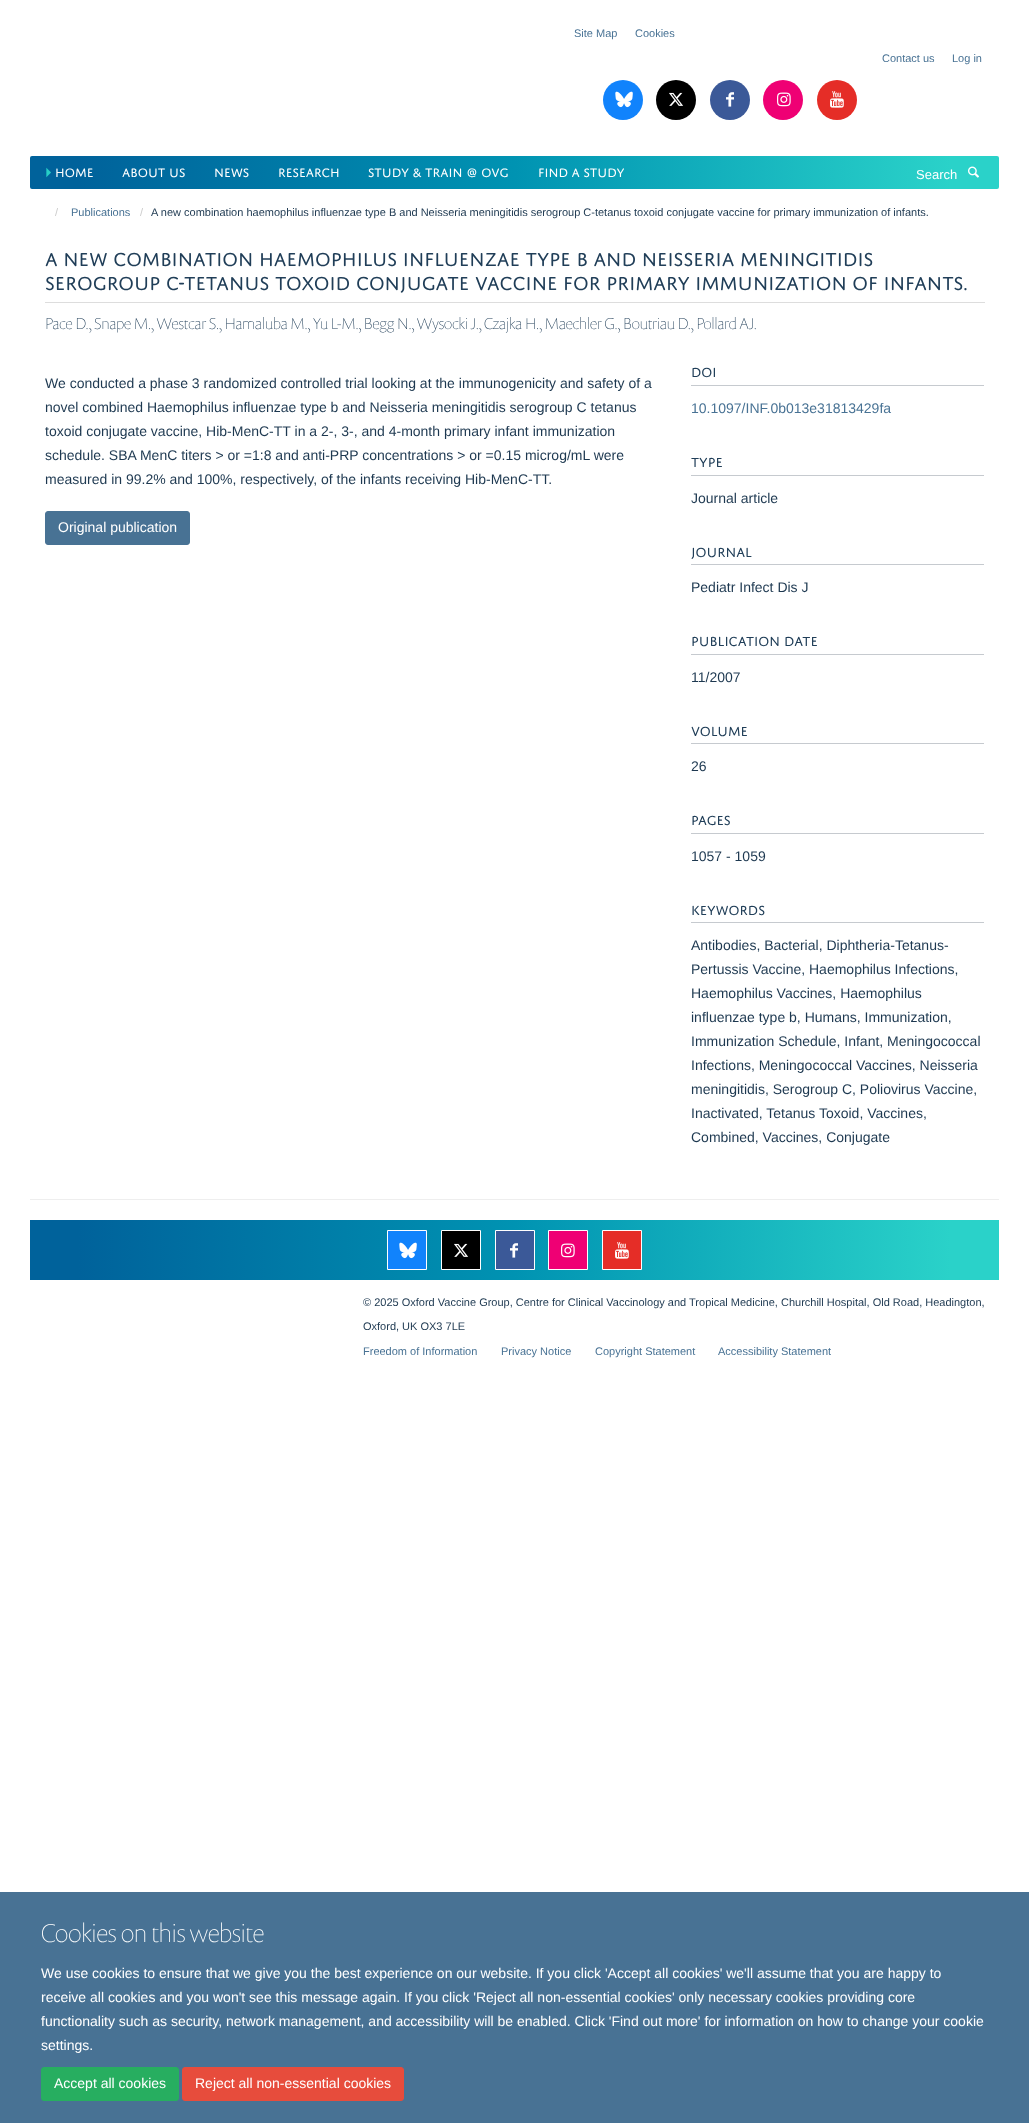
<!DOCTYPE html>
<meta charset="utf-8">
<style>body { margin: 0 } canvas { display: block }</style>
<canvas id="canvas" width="1029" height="2123"></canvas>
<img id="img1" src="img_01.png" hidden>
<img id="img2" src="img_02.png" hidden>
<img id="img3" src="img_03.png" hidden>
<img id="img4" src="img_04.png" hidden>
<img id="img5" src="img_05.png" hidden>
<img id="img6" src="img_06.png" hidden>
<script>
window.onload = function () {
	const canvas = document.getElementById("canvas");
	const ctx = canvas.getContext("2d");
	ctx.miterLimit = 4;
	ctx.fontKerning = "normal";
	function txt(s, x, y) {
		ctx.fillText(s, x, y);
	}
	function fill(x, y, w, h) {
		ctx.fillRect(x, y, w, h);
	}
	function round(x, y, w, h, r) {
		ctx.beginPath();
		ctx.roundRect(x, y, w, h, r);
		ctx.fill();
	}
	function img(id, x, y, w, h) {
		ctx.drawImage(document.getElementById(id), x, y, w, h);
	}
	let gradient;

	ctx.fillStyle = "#FFFFFF";
	fill(0, 0, 1029, 2123);
	ctx.fillStyle = "#1183FC";
	ctx.beginPath();
	ctx.arc(623, 100, 20, 0, Math.PI * 2);
	ctx.fill();
	img("img1", 615, 91, 18, 17);
	ctx.fillStyle = "#000000";
	ctx.beginPath();
	ctx.arc(676, 100, 20, 0, Math.PI * 2);
	ctx.fill();
	img("img2", 669, 92, 15, 14);
	ctx.fillStyle = "#3B5998";
	ctx.beginPath();
	ctx.arc(730, 100, 20, 0, Math.PI * 2);
	ctx.fill();
	img("img3", 726, 92, 8, 15);
	ctx.fillStyle = "#EF0074";
	ctx.beginPath();
	ctx.arc(783, 100, 20, 0, Math.PI * 2);
	ctx.fill();
	img("img4", 777, 92, 14, 15);
	ctx.fillStyle = "#E52D27";
	ctx.beginPath();
	ctx.arc(837, 100, 20, 0, Math.PI * 2);
	ctx.fill();
	img("img5", 830, 91, 14, 17);
	gradient = ctx.createLinearGradient(30, 173, 999, 172);
	gradient.addColorStop(0.05, "#00629B");
	gradient.addColorStop(0.5, "#0093B2");
	gradient.addColorStop(0.95, "#2AD2C9");
	ctx.fillStyle = gradient;
	round(30, 156, 969, 33, 2);
	img("img6", 968, 166, 11, 12);
	ctx.fillStyle = "#DDDDDD";
	fill(45, 302, 940, 1);
	ctx.fillStyle = "#487294";
	ctx.beginPath();
	ctx.roundRect(45.5, 511.5, 144, 33, 2.5);
	ctx.fill();
	ctx.strokeStyle = "#487294";
	ctx.stroke();
	ctx.fillStyle = "#C6CACF";
	fill(691, 385, 293, 1);
	fill(691, 475, 293, 1);
	fill(691, 564, 293, 1);
	fill(691, 654, 293, 1);
	fill(691, 743, 293, 1);
	fill(691, 833, 293, 1);
	fill(691, 922, 293, 1);
	ctx.fillStyle = "#EEEEEE";
	fill(30, 1199, 969, 1);
	gradient = ctx.createLinearGradient(30, 1250, 999, 1250);
	gradient.addColorStop(0.05, "#00629B");
	gradient.addColorStop(0.5, "#0093B2");
	gradient.addColorStop(0.95, "#2AD2C9");
	ctx.fillStyle = gradient;
	fill(30, 1220, 969, 60);
	ctx.fillStyle = "#1183FC";
	ctx.beginPath();
	ctx.rect(387.5, 1230.5, 39, 39);
	ctx.fill();
	ctx.strokeStyle = "#FFFFFF";
	ctx.stroke();
	img("img1", 399, 1242, 18, 17);
	ctx.fillStyle = "#000000";
	ctx.beginPath();
	ctx.rect(441.5, 1230.5, 39, 39);
	ctx.fill();
	ctx.stroke();
	img("img2", 454, 1243, 15, 14);
	ctx.fillStyle = "#3B5998";
	ctx.beginPath();
	ctx.rect(495.5, 1230.5, 39, 39);
	ctx.fill();
	ctx.stroke();
	img("img3", 510, 1243, 8, 15);
	ctx.fillStyle = "#EF0074";
	ctx.beginPath();
	ctx.rect(548.5, 1230.5, 39, 39);
	ctx.fill();
	ctx.stroke();
	img("img4", 561, 1243, 14, 15);
	ctx.fillStyle = "#E52D27";
	ctx.beginPath();
	ctx.rect(602.5, 1230.5, 39, 39);
	ctx.fill();
	ctx.stroke();
	img("img5", 615, 1242, 14, 17);
	ctx.fillStyle = "#487294";
	fill(0, 1892, 1029, 231);
	ctx.fillStyle = "#27AE60";
	ctx.beginPath();
	ctx.roundRect(41.5, 2067.5, 137, 33, 2.5);
	ctx.fill();
	ctx.strokeStyle = "#27AE60";
	ctx.stroke();
	ctx.fillStyle = "#E74C3C";
	ctx.beginPath();
	ctx.roundRect(182.5, 2067.5, 221, 33, 2.5);
	ctx.fill();
	ctx.strokeStyle = "#E74C3C";
	ctx.stroke();
	ctx.font = "11px Liberation Sans";
	ctx.fillStyle = "#487294";
	txt("Site Map", 574, 37);
	txt("Cookies", 635, 37);
	txt("Contact us", 882, 62);
	txt("Log in", 952, 62);
	ctx.font = "13px FreeSans";
	ctx.fillStyle = "#27CEC7";
	txt("⏵", 45, 177);
	ctx.font = "13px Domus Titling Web";
	ctx.fillStyle = "#FFFFFF";
	txt("HOME", 55, 177);
	txt("ABOUT US", 122, 177);
	txt("NEWS", 214, 177);
	txt("RESEARCH", 278, 177);
	txt("STUDY & TRAIN @ OVG", 368, 177);
	txt("FIND A STUDY", 538, 177);
	ctx.font = "13px Liberation Sans";
	txt("Search", 916, 179);
	ctx.font = "11px Liberation Sans";
	ctx.fillStyle = "#CCCCCC";
	txt("/", 55, 216);
	ctx.fillStyle = "#487294";
	txt("Publications", 71, 216);
	ctx.fillStyle = "#CCCCCC";
	txt("/", 140, 216);
	ctx.fillStyle = "#1D3850";
	txt("A new combination haemophilus influenzae type B and Neisseria meningitidis serogroup C-tetanus toxoid conjugate vaccine for primary immunization of infants.", 151, 216);
	ctx.font = "20px Domus Titling Web";
	ctx.fillStyle = "#203E58";
	txt("A NEW COMBINATION HAEMOPHILUS INFLUENZAE TYPE B AND NEISSERIA MENINGITIDIS", 45, 266);
	txt("SEROGROUP C-TETANUS TOXOID CONJUGATE VACCINE FOR PRIMARY IMMUNIZATION OF INFANTS.", 45, 290);
	ctx.font = "100 16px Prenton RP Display";
	txt("Pace D., Snape M., Westcar S., Hamaluba M., Yu L-M., Begg N., Wysocki J., Czajka H., Maechler G., Boutriau D., Pollard AJ.", 45, 329);
	ctx.font = "14px Liberation Sans";
	ctx.fillStyle = "#1D3850";
	txt("We conducted a phase 3 randomized controlled trial looking at the immunogenicity and safety of a", 45, 388);
	txt("novel combined Haemophilus influenzae type b and Neisseria meningitidis serogroup C tetanus", 45, 412);
	txt("toxoid conjugate vaccine, Hib-MenC-TT in a 2-, 3-, and 4-month primary infant immunization", 45, 436);
	txt("schedule. SBA MenC titers > or =1:8 and anti-PRP concentrations > or =0.15 microg/mL were", 45, 460);
	txt("measured in 99.2% and 100%, respectively, of the infants receiving Hib-MenC-TT.", 45, 484);
	ctx.fillStyle = "#FFFFFF";
	txt("Original publication", 58, 532);
	ctx.font = "14px Domus Titling Web";
	ctx.fillStyle = "#203E58";
	txt("DOI", 691, 377);
	ctx.font = "14px Liberation Sans";
	ctx.fillStyle = "#487294";
	txt("10.1097/INF.0b013e31813429fa", 691, 413);
	ctx.font = "14px Domus Titling Web";
	ctx.fillStyle = "#203E58";
	txt("TYPE", 691, 467);
	ctx.font = "14px Liberation Sans";
	ctx.fillStyle = "#1D3850";
	txt("Journal article", 691, 503);
	ctx.font = "14px Domus Titling Web";
	ctx.fillStyle = "#203E58";
	txt("JOURNAL", 691, 557);
	ctx.font = "14px Liberation Sans";
	ctx.fillStyle = "#1D3850";
	txt("Pediatr Infect Dis J", 691, 592);
	ctx.font = "14px Domus Titling Web";
	ctx.fillStyle = "#203E58";
	txt("PUBLICATION DATE", 691, 646);
	ctx.font = "14px Liberation Sans";
	ctx.fillStyle = "#1D3850";
	txt("11/2007", 691, 682);
	ctx.font = "14px Domus Titling Web";
	ctx.fillStyle = "#203E58";
	txt("VOLUME", 691, 736);
	ctx.font = "14px Liberation Sans";
	ctx.fillStyle = "#1D3850";
	txt("26", 691, 771);
	ctx.font = "14px Domus Titling Web";
	ctx.fillStyle = "#203E58";
	txt("PAGES", 691, 825);
	ctx.font = "14px Liberation Sans";
	ctx.fillStyle = "#1D3850";
	txt("1057 - 1059", 691, 861);
	ctx.font = "14px Domus Titling Web";
	ctx.fillStyle = "#203E58";
	txt("KEYWORDS", 691, 915);
	ctx.font = "14px Liberation Sans";
	ctx.fillStyle = "#1D3850";
	txt("Antibodies, Bacterial, Diphtheria-Tetanus-", 691, 950);
	txt("Pertussis Vaccine, Haemophilus Infections,", 691, 974);
	txt("Haemophilus Vaccines, Haemophilus", 691, 998);
	txt("influenzae type b, Humans, Immunization,", 691, 1022);
	txt("Immunization Schedule, Infant, Meningococcal", 691, 1046);
	txt("Infections, Meningococcal Vaccines, Neisseria", 691, 1070);
	txt("meningitidis, Serogroup C, Poliovirus Vaccine,", 691, 1094);
	txt("Inactivated, Tetanus Toxoid, Vaccines,", 691, 1118);
	txt("Combined, Vaccines, Conjugate", 691, 1142);
	ctx.font = "11px Liberation Sans";
	txt("© 2025 Oxford Vaccine Group, Centre for Clinical Vaccinology and Tropical Medicine, Churchill Hospital, Old Road, Headington,", 363, 1306);
	txt("Oxford, UK OX3 7LE", 363, 1330);
	ctx.fillStyle = "#487294";
	txt("Freedom of Information", 363, 1355);
	txt("Privacy Notice", 501, 1355);
	txt("Copyright Statement", 595, 1355);
	txt("Accessibility Statement", 718, 1355);
	ctx.font = "100 26px Prenton RP Display";
	ctx.fillStyle = "#FFFFFF";
	txt("Cookies on this website", 41, 1942);
	ctx.font = "14px Liberation Sans";
	txt("We use cookies to ensure that we give you the best experience on our website. If you click 'Accept all cookies' we'll assume that you are happy to", 41, 1978);
	txt("receive all cookies and you won't see this message again. If you click 'Reject all non-essential cookies' only necessary cookies providing core", 41, 2002);
	txt("functionality such as security, network management, and accessibility will be enabled. Click 'Find out more' for information on how to change your cookie", 41, 2026);
	txt("settings.", 41, 2050);
	txt("Accept all cookies", 54, 2088);
	txt("Reject all non-essential cookies", 195, 2088);
};
</script>
